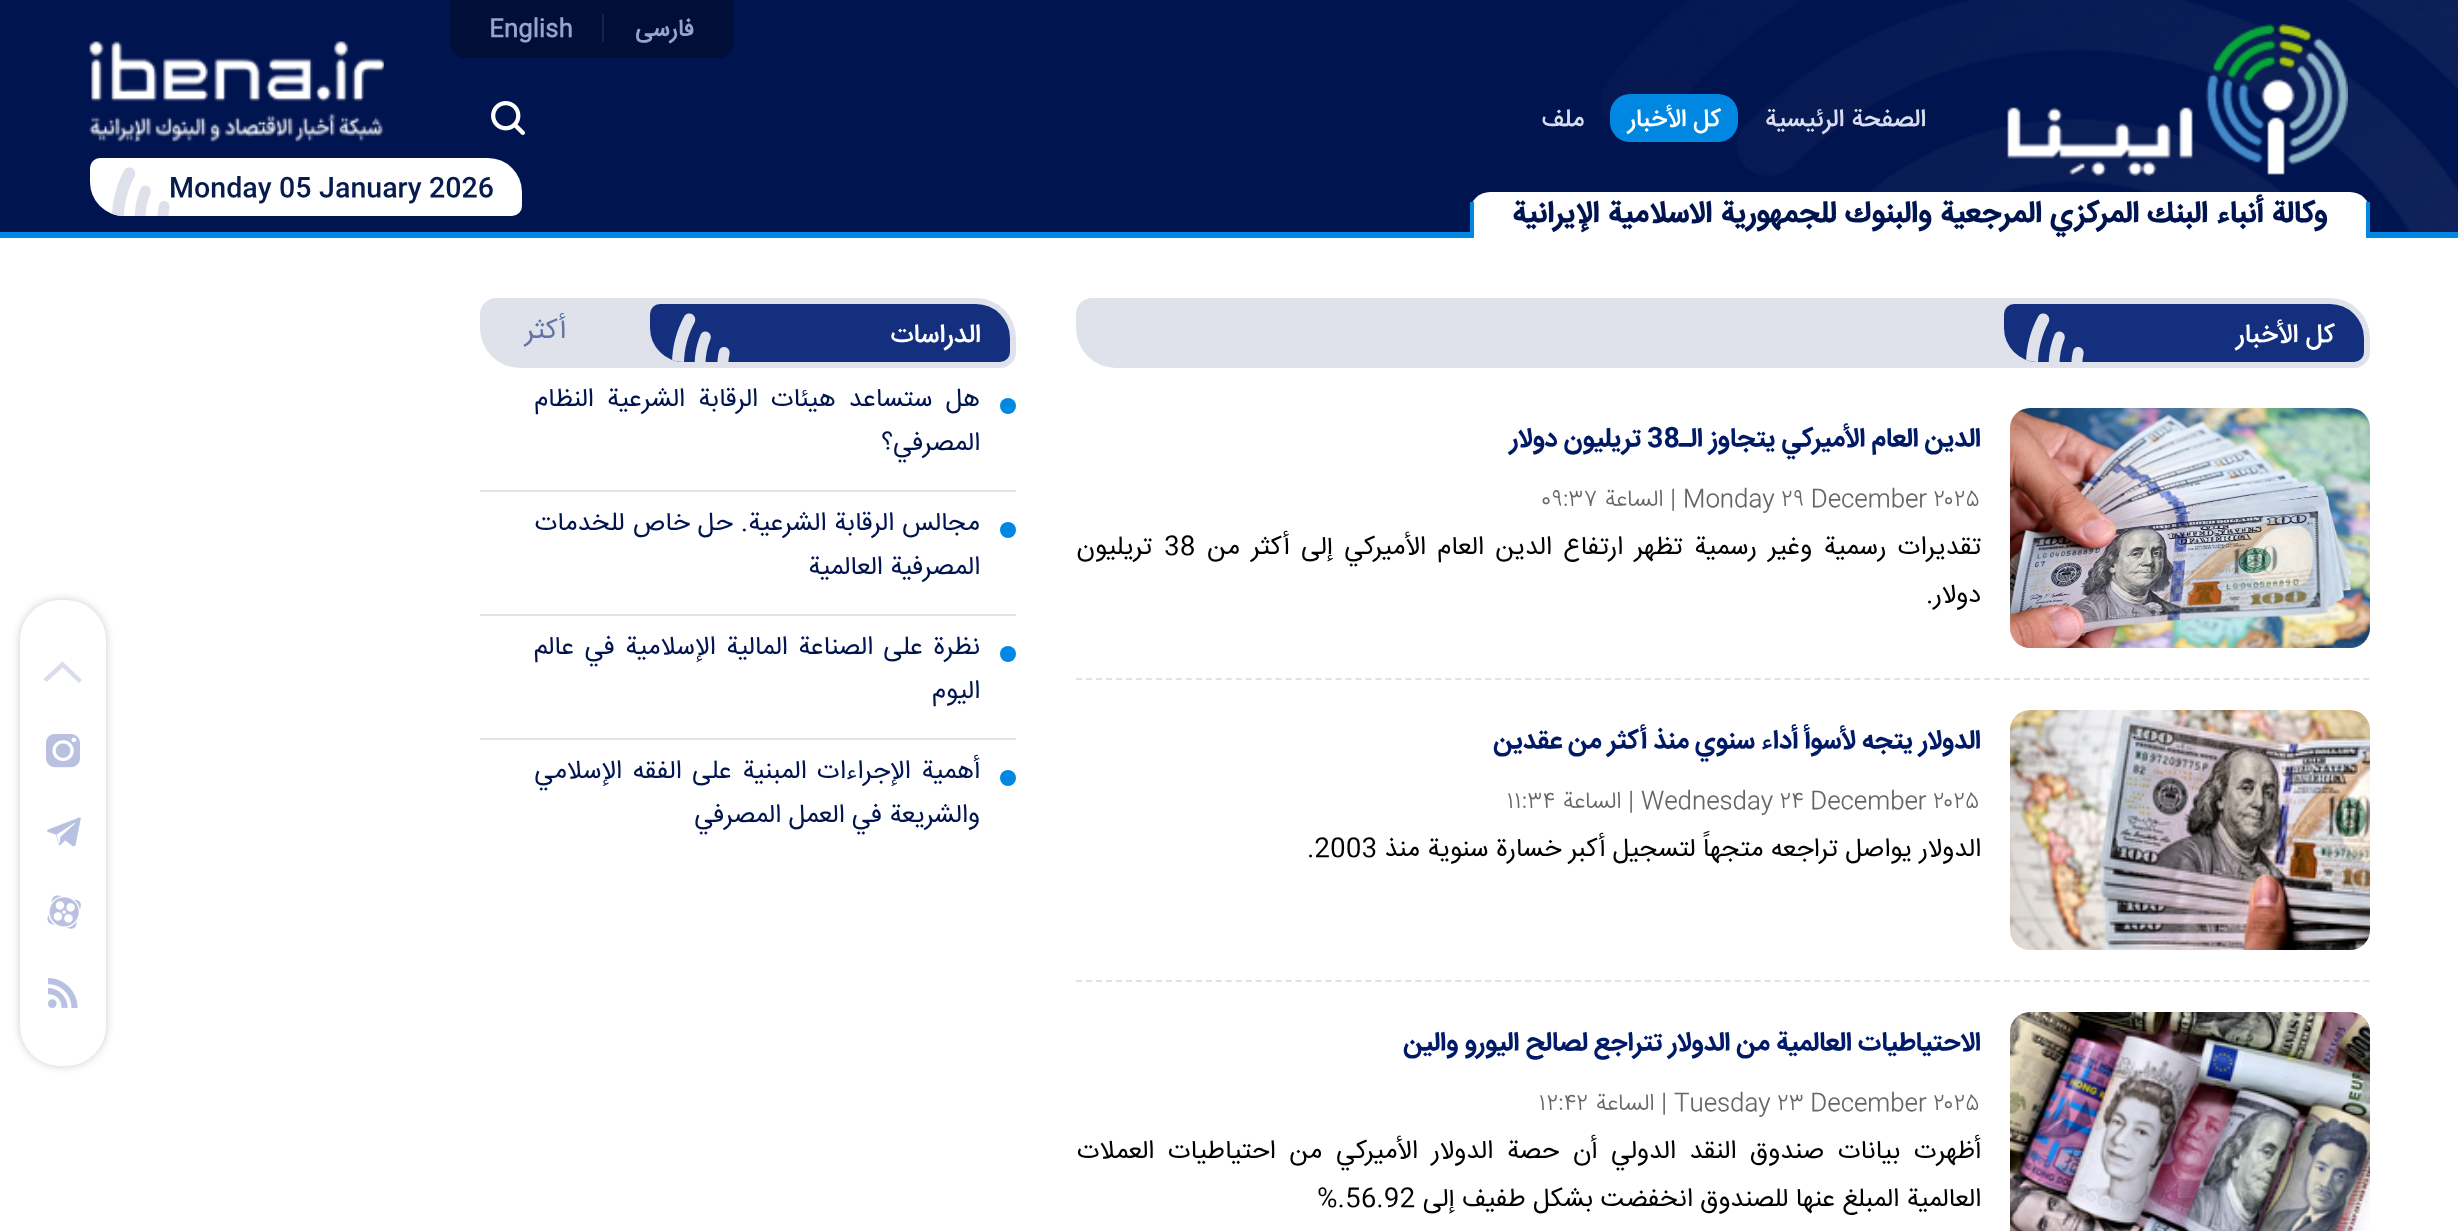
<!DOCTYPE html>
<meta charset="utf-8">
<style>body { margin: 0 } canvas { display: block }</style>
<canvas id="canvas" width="2458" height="1231"></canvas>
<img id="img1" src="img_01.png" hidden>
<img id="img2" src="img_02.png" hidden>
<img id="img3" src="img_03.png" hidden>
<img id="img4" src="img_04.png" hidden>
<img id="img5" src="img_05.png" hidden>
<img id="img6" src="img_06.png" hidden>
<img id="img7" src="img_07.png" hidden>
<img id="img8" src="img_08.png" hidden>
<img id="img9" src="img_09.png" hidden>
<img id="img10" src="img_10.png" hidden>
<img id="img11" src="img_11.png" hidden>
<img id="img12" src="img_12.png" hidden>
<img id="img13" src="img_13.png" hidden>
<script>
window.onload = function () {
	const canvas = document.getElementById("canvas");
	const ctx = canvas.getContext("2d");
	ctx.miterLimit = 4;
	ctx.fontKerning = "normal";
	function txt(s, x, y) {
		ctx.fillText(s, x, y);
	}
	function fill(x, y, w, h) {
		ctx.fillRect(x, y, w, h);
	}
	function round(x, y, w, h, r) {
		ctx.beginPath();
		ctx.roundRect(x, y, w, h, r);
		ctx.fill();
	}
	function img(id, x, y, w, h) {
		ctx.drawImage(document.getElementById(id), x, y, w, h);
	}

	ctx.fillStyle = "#FFFFFF";
	fill(0, 0, 2458, 1231);
	ctx.fillStyle = "#001450";
	fill(0, 0, 2458, 232);
	ctx.fillStyle = "#0088E2";
	fill(0, 232, 2458, 6);
	img("img1", 1601, 0, 857, 232);
	ctx.fillStyle = "#000E38";
	ctx.beginPath();
	ctx.roundRect(450, 0, 284, 58, [0, 0, 16, 16]);
	ctx.fill();
	ctx.fillStyle = "#162247";
	fill(602, 14, 2, 28);
	img("img2", 2007, 24, 341, 152);
	ctx.fillStyle = "#0087E1";
	round(1610, 94, 128, 48, 20);
	img("img3", 491, 101, 34, 34);
	img("img4", 89, 41, 295, 101);
	ctx.fillStyle = "#FFFFFF";
	ctx.beginPath();
	ctx.roundRect(90, 158, 432, 58, [10, 34, 10, 34]);
	ctx.fill();
	img("img5", 112, 167, 58, 49);
	ctx.beginPath();
	ctx.roundRect(1470, 192, 900, 46, [20, 20, 0, 0]);
	ctx.fill();
	ctx.fillStyle = "#0088E2";
	fill(2366, 202, 4, 36);
	fill(1470, 202, 4, 36);
	ctx.fillStyle = "#DFE2EB";
	ctx.beginPath();
	ctx.roundRect(1076, 298, 1294, 70, [16, 40, 16, 40]);
	ctx.fill();
	ctx.fillStyle = "#132F7E";
	ctx.beginPath();
	ctx.roundRect(2004, 304, 360, 58, [10, 34, 10, 34]);
	ctx.fill();
	img("img6", 2026, 313, 58, 49);
	img("img7", 2010, 408, 360, 240);
	ctx.beginPath();
	ctx.moveTo(1076, 679);
	ctx.lineTo(2370, 679);
	ctx.strokeStyle = "#DFE2EB";
	ctx.lineWidth = 2;
	ctx.setLineDash([6, 3.98]);
	ctx.stroke();
	img("img8", 2010, 710, 360, 240);
	ctx.beginPath();
	ctx.moveTo(1076, 981);
	ctx.lineTo(2370, 981);
	ctx.stroke();
	img("img9", 2010, 1012, 360, 219);
	ctx.fillStyle = "#DFE2EB";
	ctx.beginPath();
	ctx.roundRect(480, 298, 536, 70, [16, 40, 16, 40]);
	ctx.fill();
	ctx.fillStyle = "#132F7E";
	ctx.beginPath();
	ctx.roundRect(650, 304, 360, 58, [10, 34, 10, 34]);
	ctx.fill();
	img("img6", 672, 313, 58, 49);
	ctx.fillStyle = "#0088E2";
	ctx.beginPath();
	ctx.arc(1008, 406, 8, 0, Math.PI * 2);
	ctx.fill();
	ctx.fillStyle = "#DFE2EB";
	fill(480, 490, 536, 2);
	ctx.fillStyle = "#0088E2";
	ctx.beginPath();
	ctx.arc(1008, 530, 8, 0, Math.PI * 2);
	ctx.fill();
	ctx.fillStyle = "#DFE2EB";
	fill(480, 614, 536, 2);
	ctx.fillStyle = "#0088E2";
	ctx.beginPath();
	ctx.arc(1008, 654, 8, 0, Math.PI * 2);
	ctx.fill();
	ctx.fillStyle = "#DFE2EB";
	fill(480, 738, 536, 2);
	ctx.fillStyle = "#0088E2";
	ctx.beginPath();
	ctx.arc(1008, 778, 8, 0, Math.PI * 2);
	ctx.fill();
	ctx.fillStyle = "rgba(0, 0, 0, 0.2)";
	ctx.filter = "blur(4px)";
	ctx.beginPath();
	ctx.roundRect(20, 600, 86, 466, 40);
	ctx.fill();
	ctx.filter = "none";
	ctx.fillStyle = "#FFFFFF";
	round(20, 600, 86, 466, 40);
	ctx.fillStyle = "#D8DDEB";
	ctx.beginPath();
	ctx.moveTo(62.5, 667.5);
	ctx.lineTo(46.5, 682);
	ctx.lineTo(43.5, 679);
	ctx.lineTo(62.5, 661.5);
	ctx.lineTo(82, 680);
	ctx.lineTo(79, 683);
	ctx.closePath();
	ctx.fill();
	img("img10", 46, 734, 34, 34);
	img("img11", 47, 817, 34, 30);
	img("img12", 47, 895, 34, 34);
	img("img13", 48, 978, 30, 30);
	ctx.direction = "rtl";
	ctx.font = "bold 24px 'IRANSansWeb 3'";
	ctx.fillStyle = "#97A4C9";
	txt("فارسی", 694, 36);
	ctx.direction = "ltr";
	txt("English", 489, 36);
	ctx.direction = "rtl";
	ctx.font = "500 25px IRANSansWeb";
	ctx.fillStyle = "#D8DEEF";
	txt("الصفحة الرئیسیة", 1926, 126);
	ctx.fillStyle = "#FFFFFF";
	txt("كل الأخبار", 1721, 126);
	ctx.fillStyle = "#D8DEEF";
	txt("ملف", 1584, 126);
	ctx.direction = "ltr";
	ctx.font = "500 26.5px IRANSansWeb";
	ctx.fillStyle = "#081B4E";
	txt("Monday 05 January 2026", 169, 196);
	ctx.direction = "rtl";
	ctx.font = "bold 30px 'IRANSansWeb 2'";
	ctx.fillStyle = "#001450";
	txt("وكالة أنباء البنك المركزي المرجعية والبنوك للجمهورية الاسلامية الإيرانية", 2327, 222);
	ctx.font = "500 26.5px IRANSansWeb";
	ctx.fillStyle = "#FFFFFF";
	txt("كل الأخبار", 2335, 342);
	ctx.direction = "ltr";
	ctx.font = "bold 26.5px IRANSansWeb";
	ctx.fillStyle = "#001A68";
	txt("38", 1647, 446);
	ctx.direction = "rtl";
	txt("الدين العام الأميركي يتجاوز الـ", 1981, 446);
	txt("تريليون دولار", 1641, 446);
	ctx.wordSpacing = "-0.5px";
	ctx.direction = "ltr";
	ctx.font = "300 24px IRANSansWeb";
	ctx.fillStyle = "#666666";
	txt("Monday ۲۹ December ۲۰۲۵", 1683, 506);
	ctx.wordSpacing = "0px";
	ctx.direction = "rtl";
	txt("| الساعة", 1676, 506);
	ctx.direction = "ltr";
	txt("۰۹:۳۷", 1541, 506);
	ctx.wordSpacing = "4.1px";
	ctx.direction = "rtl";
	ctx.font = "26px IRANSansWeb";
	ctx.fillStyle = "#000000";
	txt("تقديرات رسمية وغير رسمية تظهر ارتفاع الدين العام الأميركي إلى أكثر من", 1981, 554);
	ctx.wordSpacing = "0px";
	ctx.direction = "ltr";
	txt("38", 1164, 554);
	ctx.direction = "rtl";
	txt("تريليون", 1152, 554);
	txt("دولار.", 1981, 602);
	ctx.font = "bold 26.5px IRANSansWeb";
	ctx.fillStyle = "#001A68";
	txt("الدولار يتجه لأسوأ أداء سنوي منذ أكثر من عقدين", 1981, 748);
	ctx.wordSpacing = "-0.5px";
	ctx.direction = "ltr";
	ctx.font = "300 24px IRANSansWeb";
	ctx.fillStyle = "#666666";
	txt("Wednesday ۲۴ December ۲۰۲۵", 1641, 808);
	ctx.wordSpacing = "0px";
	ctx.direction = "rtl";
	txt("| الساعة", 1634, 808);
	ctx.direction = "ltr";
	txt("۱۱:۳۴", 1507, 808);
	ctx.direction = "rtl";
	ctx.font = "26px IRANSansWeb";
	ctx.fillStyle = "#000000";
	txt("الدولار يواصل تراجعه متجهاً لتسجيل أكبر خسارة سنوية منذ", 1981, 856);
	ctx.direction = "ltr";
	txt(".2003", 1307, 856);
	ctx.direction = "rtl";
	ctx.font = "bold 26.5px IRANSansWeb";
	ctx.fillStyle = "#001A68";
	txt("الاحتياطيات العالمية من الدولار تتراجع لصالح اليورو والين", 1981, 1050);
	ctx.wordSpacing = "-0.5px";
	ctx.direction = "ltr";
	ctx.font = "300 24px IRANSansWeb";
	ctx.fillStyle = "#666666";
	txt("Tuesday ۲۳ December ۲۰۲۵", 1674, 1110);
	ctx.wordSpacing = "0px";
	ctx.direction = "rtl";
	txt("| الساعة", 1667, 1110);
	ctx.direction = "ltr";
	txt("۱۲:۴۲", 1539, 1110);
	ctx.wordSpacing = "6.4px";
	ctx.direction = "rtl";
	ctx.font = "26px IRANSansWeb";
	ctx.fillStyle = "#000000";
	txt("أظهرت بيانات صندوق النقد الدولي أن حصة الدولار الأميركي من احتياطيات العملات", 1981, 1158);
	ctx.wordSpacing = "0px";
	txt("العالمية المبلغ عنها للصندوق انخفضت بشكل طفيف إلى", 1981, 1206);
	ctx.direction = "ltr";
	txt("%.56.92", 1317, 1206);
	ctx.direction = "rtl";
	ctx.font = "500 26.5px IRANSansWeb";
	ctx.fillStyle = "#FFFFFF";
	txt("الدراسات", 981, 342);
	ctx.font = "28px IRANSansWeb";
	ctx.fillStyle = "#6173A7";
	txt("أكثر", 566, 338);
	ctx.wordSpacing = "5.75px";
	ctx.font = "26px IRANSansWeb";
	ctx.fillStyle = "#001450";
	txt("هل ستساعد هيئات الرقابة الشرعية النظام", 980, 406);
	ctx.wordSpacing = "0px";
	txt("المصرفي؟", 980, 450);
	ctx.wordSpacing = "0.5px";
	txt("مجالس الرقابة الشرعية. حل خاص للخدمات", 980, 530);
	ctx.wordSpacing = "0px";
	txt("المصرفية العالمية", 980, 574);
	ctx.wordSpacing = "3px";
	txt("نظرة على الصناعة المالية الإسلامية في عالم", 980, 654);
	ctx.wordSpacing = "0px";
	txt("اليوم", 980, 698);
	ctx.wordSpacing = "3.25px";
	txt("أهمية الإجراءات المبنية على الفقه الإسلامي", 980, 778);
	ctx.wordSpacing = "0px";
	txt("والشريعة في العمل المصرفي", 980, 822);
};
</script>
